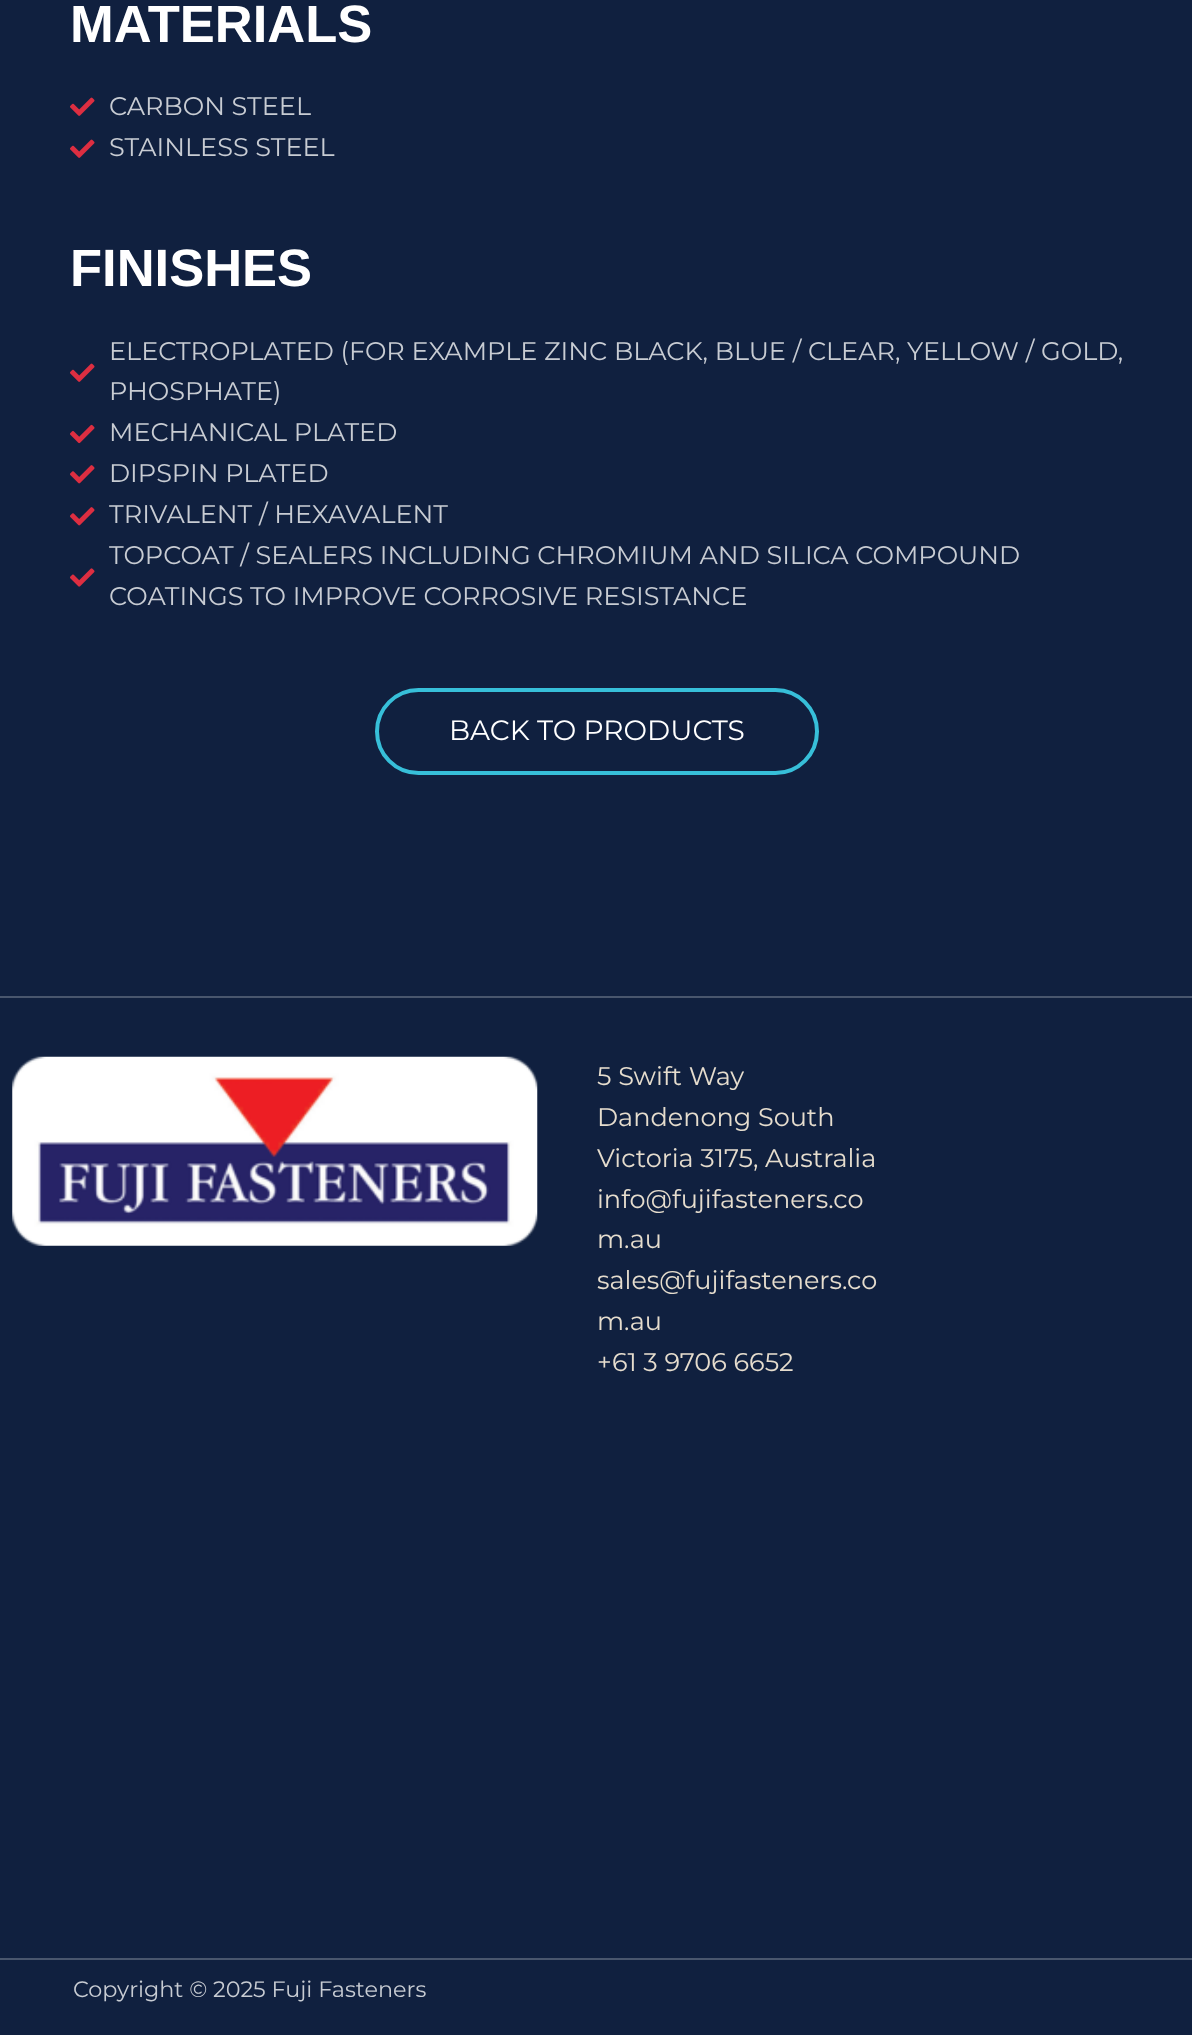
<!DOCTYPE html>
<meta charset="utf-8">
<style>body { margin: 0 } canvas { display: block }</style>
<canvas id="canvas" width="1192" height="2035"></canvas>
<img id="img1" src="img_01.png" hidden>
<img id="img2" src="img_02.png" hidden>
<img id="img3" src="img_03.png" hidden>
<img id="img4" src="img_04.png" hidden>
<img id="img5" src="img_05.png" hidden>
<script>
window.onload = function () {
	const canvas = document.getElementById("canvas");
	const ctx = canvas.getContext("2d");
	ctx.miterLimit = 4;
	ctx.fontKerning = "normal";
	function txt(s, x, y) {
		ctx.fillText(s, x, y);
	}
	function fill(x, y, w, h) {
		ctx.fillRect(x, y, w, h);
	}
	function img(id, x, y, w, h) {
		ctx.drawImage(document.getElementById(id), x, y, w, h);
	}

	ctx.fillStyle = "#10203F";
	fill(0, 0, 1192, 2035);
	img("img1", 70, 97, 25, 19);
	img("img1", 70, 139, 25, 19);
	img("img1", 70, 363, 25, 19);
	img("img2", 70, 424, 25, 20);
	img("img3", 70, 465, 25, 19);
	img("img3", 70, 507, 25, 19);
	img("img4", 70, 568, 25, 19);
	ctx.beginPath();
	ctx.roundRect(377, 690, 440, 83, 41.5);
	ctx.strokeStyle = "#37BFD9";
	ctx.lineWidth = 4;
	ctx.stroke();
	ctx.fillStyle = "#49566D";
	fill(0, 996, 1192, 2);
	img("img5", 12, 1056, 526, 190);
	fill(0, 1958, 1192, 2);
	ctx.font = "bold 52.5px Liberation Sans";
	ctx.fillStyle = "#FFFFFF";
	txt("MATERIALS", 70, 42);
	ctx.font = "25.55px Montserrat";
	ctx.fillStyle = "#C8CCD3";
	txt("CARBON STEEL", 109, 115);
	txt("STAINLESS STEEL", 109, 156);
	ctx.font = "bold 52.5px Liberation Sans";
	ctx.fillStyle = "#FFFFFF";
	txt("FINISHES", 70, 286);
	ctx.font = "25.55px Montserrat";
	ctx.fillStyle = "#C8CCD3";
	txt("ELECTROPLATED (FOR EXAMPLE ZINC BLACK, BLUE / CLEAR, YELLOW / GOLD,", 109, 360);
	txt("PHOSPHATE)", 109, 400);
	txt("MECHANICAL PLATED", 109, 441);
	txt("DIPSPIN PLATED", 109, 482);
	txt("TRIVALENT / HEXAVALENT", 109, 523);
	txt("TOPCOAT / SEALERS INCLUDING CHROMIUM AND SILICA COMPOUND", 109, 564);
	txt("COATINGS TO IMPROVE CORROSIVE RESISTANCE", 109, 605);
	ctx.font = "28px Montserrat";
	ctx.fillStyle = "#FFFFFF";
	txt("BACK TO PRODUCTS", 449, 740);
	ctx.font = "25.55px Montserrat";
	ctx.fillStyle = "#E6DDCE";
	txt("5 Swift Way", 597, 1085);
	txt("Dandenong South", 597, 1126);
	txt("Victoria 3175, Australia", 597, 1167);
	txt("info@fujifasteners.co", 597, 1208);
	txt("m.au", 597, 1248);
	txt("sales@fujifasteners.co", 597, 1289);
	txt("m.au", 597, 1330);
	txt("+61 3 9706 6652", 597, 1371);
	ctx.font = "22.3px Montserrat";
	ctx.fillStyle = "#C8CCD3";
	txt("Copyright © 2025 Fuji Fasteners", 73, 1997);
};
</script>
